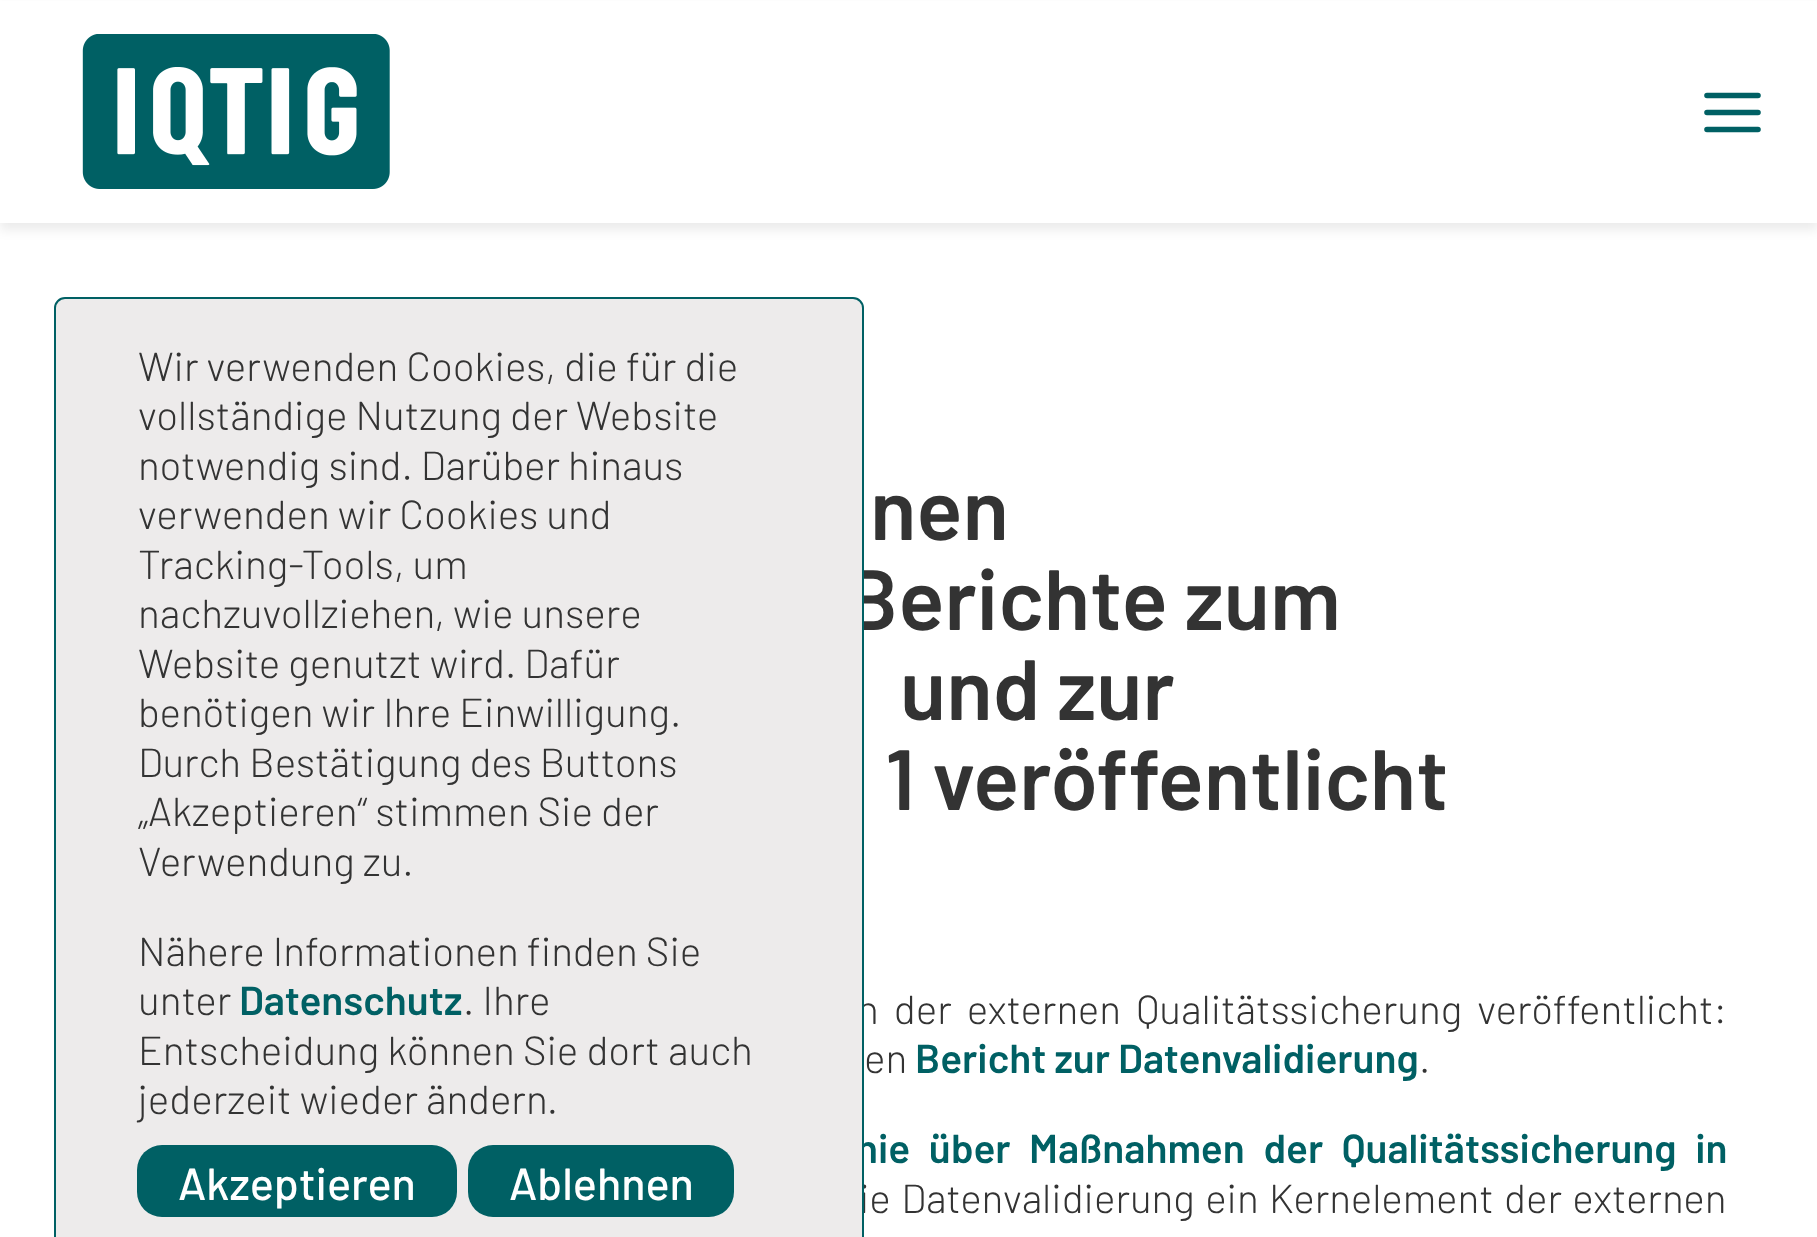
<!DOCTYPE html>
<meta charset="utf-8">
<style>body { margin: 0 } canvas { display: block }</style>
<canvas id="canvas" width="1817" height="1237"></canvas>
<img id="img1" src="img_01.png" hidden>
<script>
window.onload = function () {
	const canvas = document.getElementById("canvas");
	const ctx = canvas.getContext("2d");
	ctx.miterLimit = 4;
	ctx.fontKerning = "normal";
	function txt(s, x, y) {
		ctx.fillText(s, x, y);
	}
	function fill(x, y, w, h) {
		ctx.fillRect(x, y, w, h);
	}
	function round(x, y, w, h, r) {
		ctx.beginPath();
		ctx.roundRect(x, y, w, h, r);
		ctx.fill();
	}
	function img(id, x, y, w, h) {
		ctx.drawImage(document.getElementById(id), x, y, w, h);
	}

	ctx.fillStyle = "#FFFFFF";
	fill(0, 0, 1817, 1237);
	ctx.fillStyle = "rgba(0, 0, 0, 0.08)";
	ctx.filter = "blur(5.5px)";
	ctx.beginPath();
	ctx.rect(0, 7, 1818, 223);
	ctx.fill();
	ctx.filter = "none";
	ctx.fillStyle = "#FFFFFF";
	fill(0, 1, 1817, 222);
	img("img1", 82, 34, 308, 155);
	ctx.beginPath();
	ctx.moveTo(1707, 112.5);
	ctx.lineTo(1758, 112.5);
	ctx.moveTo(1707, 95.5);
	ctx.lineTo(1758, 95.5);
	ctx.moveTo(1707, 129.5);
	ctx.lineTo(1758, 129.5);
	ctx.strokeStyle = "#006064";
	ctx.lineWidth = 5.6;
	ctx.lineCap = "round";
	ctx.lineJoin = "round";
	ctx.stroke();
	ctx.font = "600 85.5px Barlow";
	ctx.fillStyle = "#333333";
	txt("nen", 870, 540);
	txt("Berichte zum", 845, 630);
	txt("und zur", 900, 720);
	txt("1 veröffentlicht", 885, 810);
	ctx.wordSpacing = "7px";
	ctx.font = "300 40.5px Barlow";
	txt("n der externen Qualitätssicherung veröffentlicht:", 857, 1024);
	ctx.wordSpacing = "0px";
	txt("en", 864, 1073);
	ctx.font = "600 40.5px Barlow";
	ctx.fillStyle = "#006064";
	txt("Bericht zur Datenvalidierung", 915, 1073);
	ctx.font = "300 40.5px Barlow";
	ctx.fillStyle = "#333333";
	txt(".", 1419, 1073);
	ctx.wordSpacing = "10.5px";
	ctx.font = "600 40.5px Barlow";
	ctx.fillStyle = "#006064";
	txt("nie über Maßnahmen der Qualitätssicherung in", 856, 1163);
	ctx.wordSpacing = "2.25px";
	ctx.font = "300 40.5px Barlow";
	ctx.fillStyle = "#333333";
	txt("ie Datenvalidierung ein Kernelement der externen", 859, 1213);
	ctx.fillStyle = "#EDEBEB";
	ctx.beginPath();
	ctx.roundRect(55, 298, 808, 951, 10);
	ctx.fill();
	ctx.lineWidth = 2;
	ctx.lineJoin = "miter";
	ctx.stroke();
	ctx.fillStyle = "#006064";
	round(468, 1145, 266, 72, 25);
	ctx.wordSpacing = "0px";
	ctx.font = "500 45px Barlow";
	ctx.fillStyle = "#FFFFFF";
	txt("Ablehnen", 509, 1200);
	ctx.fillStyle = "#006064";
	round(137, 1145, 320, 72, 25);
	ctx.fillStyle = "#FFFFFF";
	txt("Akzeptieren", 178, 1200);
	ctx.font = "300 40.5px Barlow";
	ctx.fillStyle = "#333333";
	txt("jederzeit wieder ändern.", 138, 1114);
	txt("Entscheidung können Sie dort auch", 138, 1065);
	txt(". Ihre", 463, 1015);
	ctx.font = "600 40.5px Barlow";
	ctx.fillStyle = "#006064";
	txt("Datenschutz", 239, 1015);
	ctx.font = "300 40.5px Barlow";
	ctx.fillStyle = "#333333";
	txt("unter", 138, 1015);
	txt("Nähere Informationen finden Sie", 138, 966);
	txt("Verwendung zu.", 138, 876);
	txt("„Akzeptieren“ stimmen Sie der", 138, 826);
	txt("Durch Bestätigung des Buttons", 138, 777);
	txt("benötigen wir Ihre Einwilligung.", 138, 727);
	txt("Website genutzt wird. Dafür", 138, 678);
	txt("nachzuvollziehen, wie unsere", 138, 628);
	txt("Tracking-Tools, um", 138, 579);
	txt("verwenden wir Cookies und", 138, 529);
	txt("notwendig sind. Darüber hinaus", 138, 480);
	txt("vollständige Nutzung der Website", 138, 430);
	txt("Wir verwenden Cookies, die für die", 138, 381);
};
</script>
